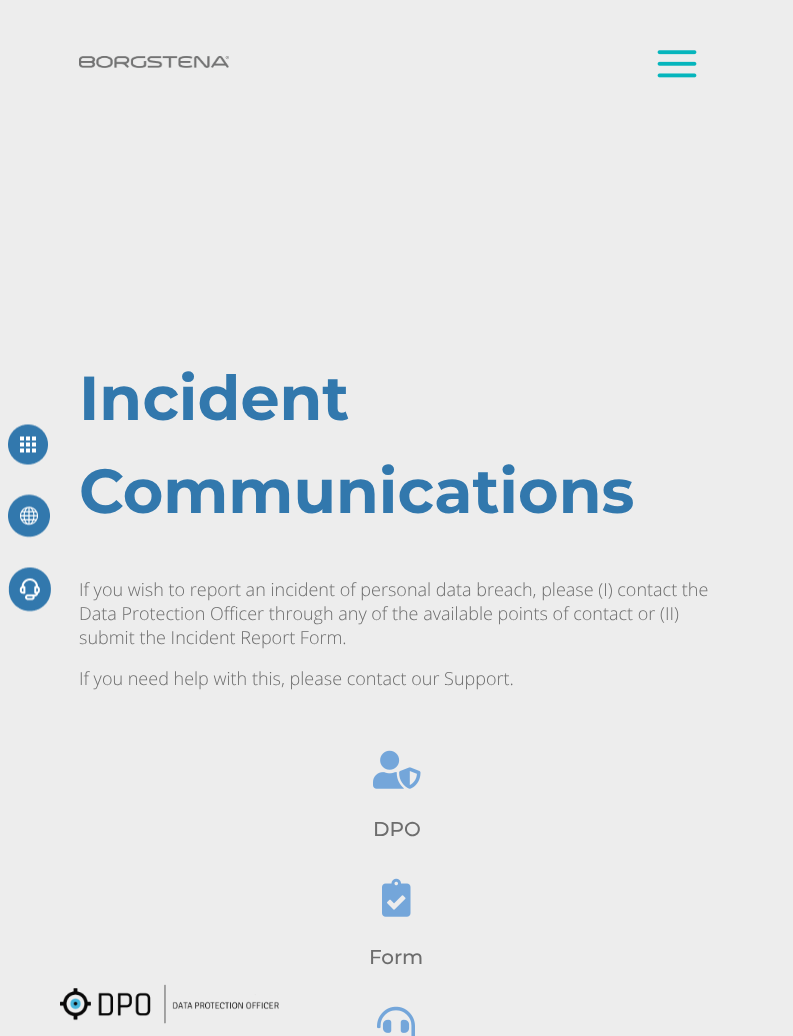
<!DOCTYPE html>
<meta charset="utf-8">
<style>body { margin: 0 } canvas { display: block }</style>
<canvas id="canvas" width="793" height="1036"></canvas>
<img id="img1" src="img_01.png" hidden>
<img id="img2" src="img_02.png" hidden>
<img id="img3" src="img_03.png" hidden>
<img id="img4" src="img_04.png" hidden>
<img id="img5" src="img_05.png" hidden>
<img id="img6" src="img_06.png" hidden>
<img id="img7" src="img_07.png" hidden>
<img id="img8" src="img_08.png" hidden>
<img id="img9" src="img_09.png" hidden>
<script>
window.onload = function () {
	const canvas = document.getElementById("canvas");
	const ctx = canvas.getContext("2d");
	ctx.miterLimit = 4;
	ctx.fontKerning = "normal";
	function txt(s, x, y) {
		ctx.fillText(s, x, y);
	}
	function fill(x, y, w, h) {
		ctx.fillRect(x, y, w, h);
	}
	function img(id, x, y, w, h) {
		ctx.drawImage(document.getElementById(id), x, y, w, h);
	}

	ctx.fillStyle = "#EDEDED";
	fill(0, 0, 793, 1036);
	img("img1", 79, 56, 150, 12);
	img("img2", 657, 50, 40, 28);
	img("img3", 8, 424, 40, 41);
	img("img4", 8, 494, 42, 44);
	img("img5", 8, 567, 43, 45);
	img("img6", 373, 750, 48, 39);
	img("img7", 382, 878, 29, 39);
	img("img8", 377, 1006, 38, 30);
	img("img9", 60, 984, 219, 40);
	ctx.font = "100 62px Montserrat";
	ctx.fillStyle = "#3278AD";
	txt("Incident", 79, 420);
	txt("Communications", 79, 513);
	ctx.font = "300 18px Open Sans";
	ctx.fillStyle = "#6D6D6D";
	txt("If you wish to report an incident of personal data breach, please (I) contact the", 79, 596);
	txt("Data Protection Officer through any of the available points of contact or (II)", 79, 620);
	txt("submit the Incident Report Form.", 79, 644);
	txt("If you need help with this, please contact our Support.", 79, 685);
	ctx.font = "100 20px 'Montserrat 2'";
	txt("DPO", 373, 836);
	txt("Form", 369, 964);
};
</script>
